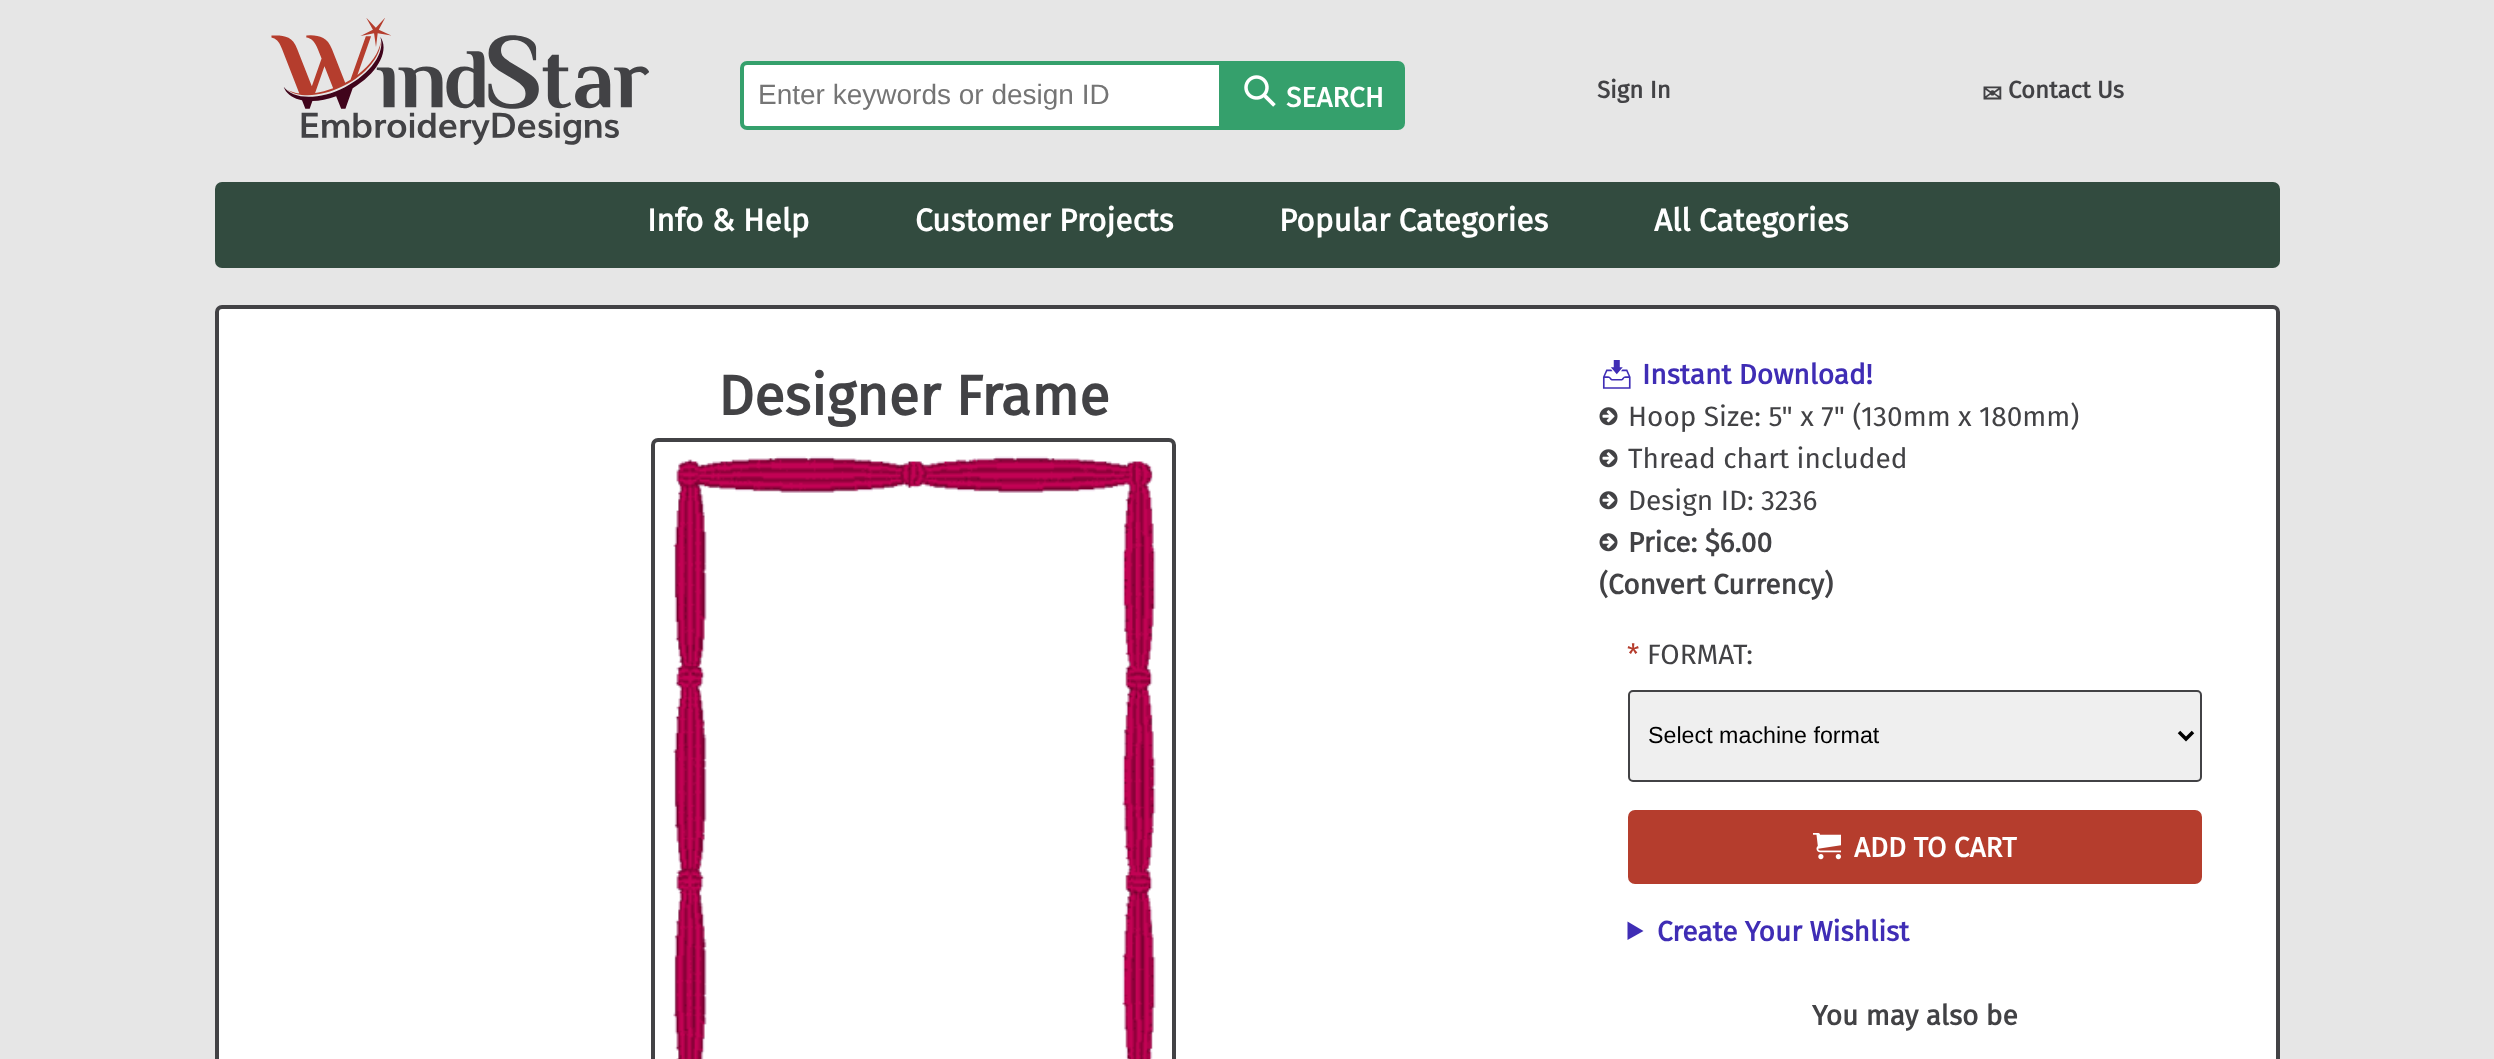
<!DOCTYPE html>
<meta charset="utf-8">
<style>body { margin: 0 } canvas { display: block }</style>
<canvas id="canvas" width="2494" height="1059"></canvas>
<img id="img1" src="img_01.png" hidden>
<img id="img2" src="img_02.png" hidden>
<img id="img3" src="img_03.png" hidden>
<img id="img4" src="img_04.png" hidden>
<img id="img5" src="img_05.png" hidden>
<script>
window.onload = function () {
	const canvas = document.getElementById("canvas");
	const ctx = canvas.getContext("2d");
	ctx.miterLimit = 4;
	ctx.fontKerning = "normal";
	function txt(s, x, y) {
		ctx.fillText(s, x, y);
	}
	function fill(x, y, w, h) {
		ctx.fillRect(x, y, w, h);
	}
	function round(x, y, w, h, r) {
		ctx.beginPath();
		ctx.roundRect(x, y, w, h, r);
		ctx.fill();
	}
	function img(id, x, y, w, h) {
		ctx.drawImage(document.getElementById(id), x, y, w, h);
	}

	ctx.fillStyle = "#E6E6E6";
	fill(0, 0, 2494, 1059);
	img("img1", 271, 18, 378, 127);
	ctx.fillStyle = "#FFFFFF";
	ctx.beginPath();
	ctx.roundRect(742, 63, 479, 65, [5, 0, 0, 5]);
	ctx.fill();
	ctx.strokeStyle = "#35A06C";
	ctx.lineWidth = 4;
	ctx.stroke();
	ctx.fillStyle = "#35A06C";
	ctx.beginPath();
	ctx.roundRect(1223, 61, 182, 69, [0, 7, 7, 0]);
	ctx.fill();
	img("img2", 1244, 75, 32, 32);
	ctx.fillStyle = "#324B3F";
	round(215, 182, 2065, 86, 7);
	ctx.fillStyle = "#FFFFFF";
	ctx.beginPath();
	ctx.roundRect(217, 307, 2061, 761, 5);
	ctx.fill();
	ctx.strokeStyle = "#424245";
	ctx.stroke();
	ctx.beginPath();
	ctx.roundRect(653, 440, 521, 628, 5);
	ctx.stroke();
	img("img3", 673, 456, 483, 603);
	img("img4", 1599, 407, 19, 19);
	img("img4", 1599, 449, 19, 19);
	img("img4", 1599, 491, 19, 19);
	img("img4", 1599, 533, 19, 19);
	ctx.fillStyle = "#EFEFEF";
	ctx.beginPath();
	ctx.roundRect(1629, 691, 572, 90, 4);
	ctx.fill();
	ctx.lineWidth = 2;
	ctx.stroke();
	ctx.beginPath();
	ctx.moveTo(2179, 732);
	ctx.lineTo(2186, 739);
	ctx.lineTo(2193, 732);
	ctx.strokeStyle = "#000000";
	ctx.lineWidth = 3.5;
	ctx.stroke();
	ctx.fillStyle = "#B53D2D";
	round(1628, 810, 574, 74, 7);
	img("img5", 1813, 833, 28, 27);
	ctx.fillStyle = "#3F2DB5";
	ctx.beginPath();
	ctx.moveTo(1627.5, 921.5);
	ctx.lineTo(1643.5, 931);
	ctx.lineTo(1627.5, 940);
	ctx.closePath();
	ctx.fill();
	ctx.font = "28px Liberation Sans";
	ctx.fillStyle = "#757575";
	txt("Enter keywords or design ID", 758, 104);
	ctx.font = "bold 28px Fira Sans";
	ctx.fillStyle = "#FFFFFF";
	txt("SEARCH", 1286, 107);
	ctx.font = "bold 24px Fira Sans";
	ctx.fillStyle = "#424245";
	txt("Sign In", 1597, 98);
	ctx.font = "bold 24px DejaVu Sans";
	txt("✉︎", 1982, 102);
	ctx.font = "bold 24px Fira Sans";
	txt("Contact Us", 2008, 98);
	ctx.font = "bold 31.5px Fira Sans";
	ctx.fillStyle = "#FFFFFF";
	txt("Info & Help", 647, 231);
	txt("Customer Projects", 915, 231);
	txt("Popular Categories", 1279, 231);
	txt("All Categories", 1654, 231);
	ctx.font = "bold 56px Fira Sans";
	ctx.fillStyle = "#424245";
	txt("Designer Frame", 718, 415);
	ctx.font = "bold 28px Noto Emoji";
	ctx.fillStyle = "#3F2DB5";
	txt("📥︎", 1599, 384);
	ctx.font = "bold 28px Fira Sans";
	txt("Instant Download!", 1642, 384);
	ctx.font = "28px Fira Sans";
	ctx.fillStyle = "#424245";
	txt("Hoop Size: 5\" x 7\" (130mm x 180mm)", 1628, 426);
	txt("Thread chart included", 1628, 468);
	txt("Design ID: 3236", 1628, 510);
	ctx.font = "bold 28px Fira Sans";
	txt("Price: $6.00", 1628, 552);
	txt("(Convert Currency)", 1599, 594);
	ctx.font = "28px Fira Sans";
	ctx.fillStyle = "#B53D2D";
	txt("*", 1627, 664);
	ctx.fillStyle = "#424245";
	txt("FORMAT:", 1647, 664);
	ctx.font = "23.25px Liberation Sans";
	ctx.fillStyle = "#000000";
	txt("Select machine format", 1648, 743);
	ctx.font = "bold 28px Fira Sans";
	ctx.fillStyle = "#FFFFFF";
	txt("ADD TO CART", 1854, 857);
	ctx.fillStyle = "#3F2DB5";
	txt("Create Your Wishlist", 1657, 941);
	ctx.fillStyle = "#424245";
	txt("You may also be", 1812, 1025);
};
</script>
